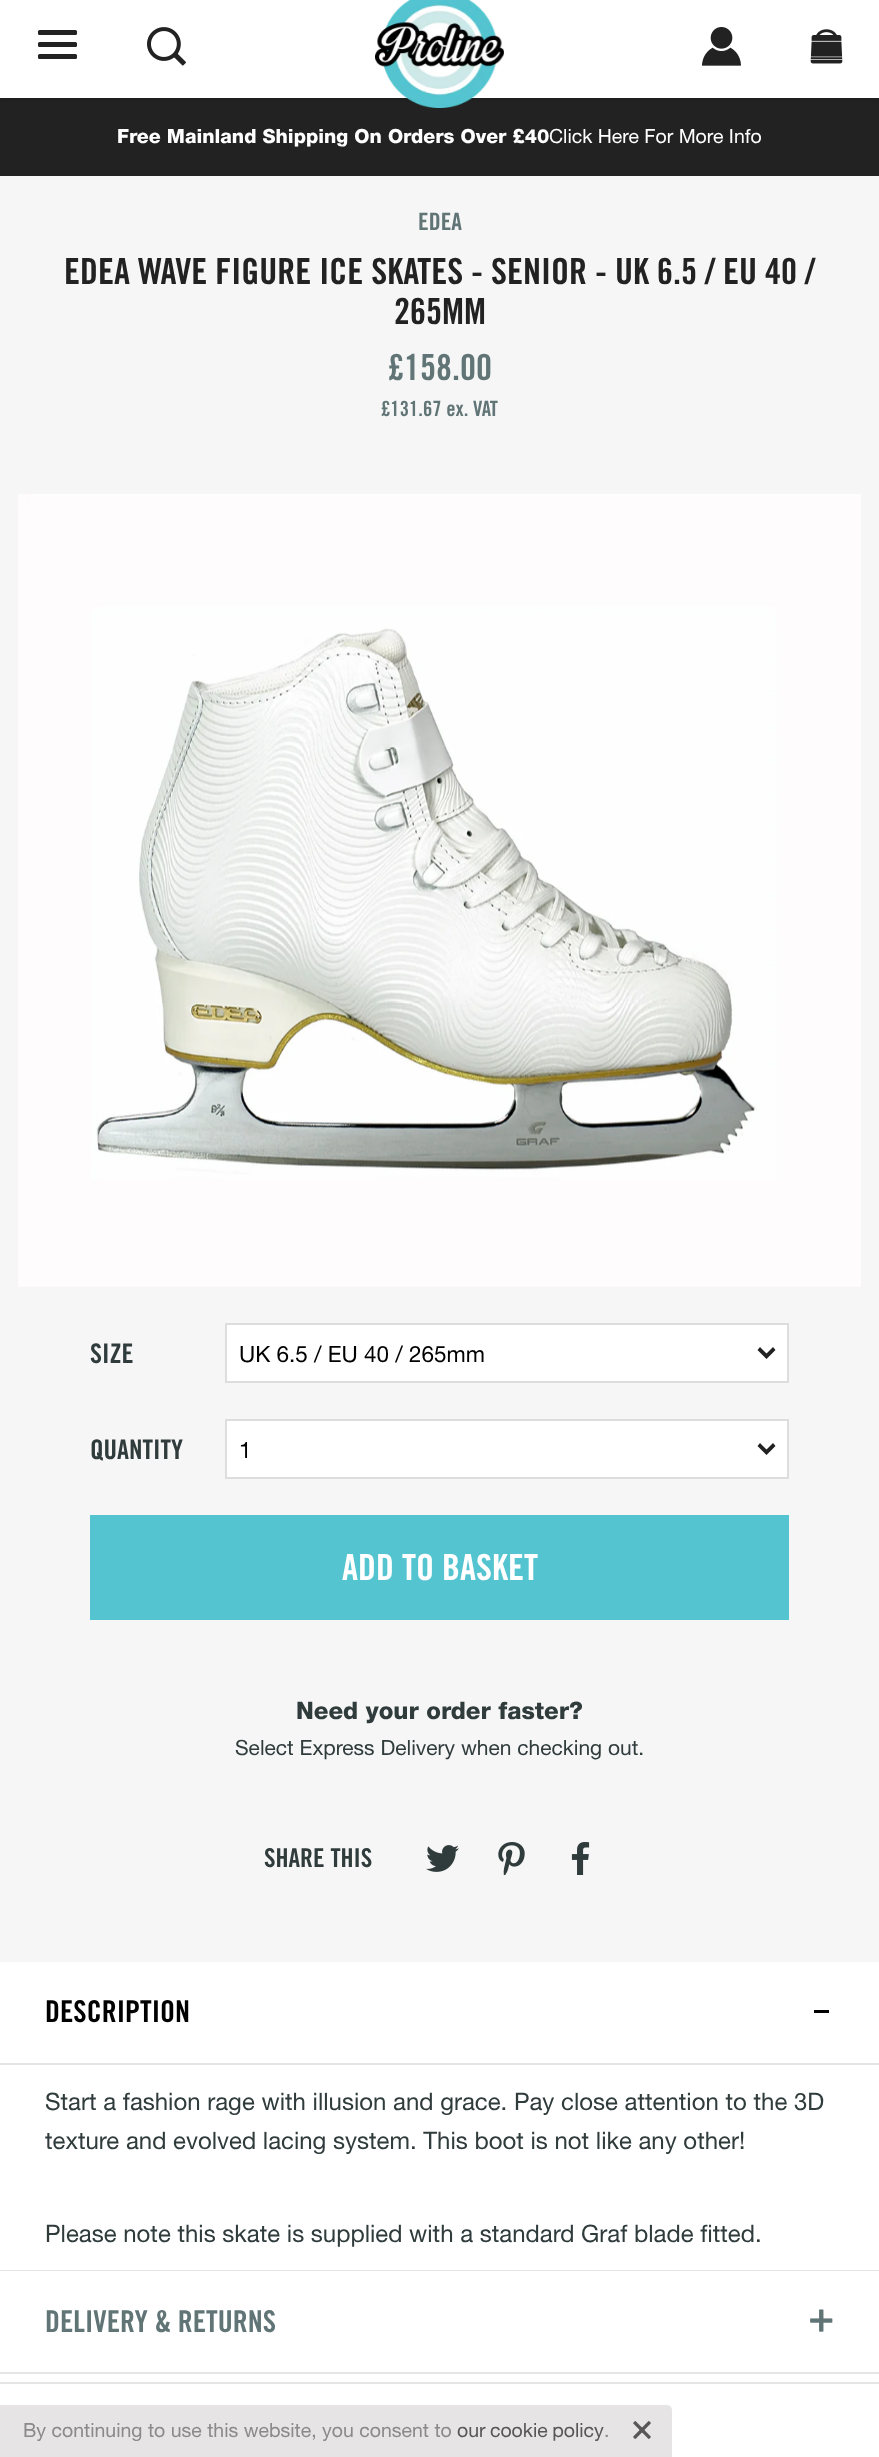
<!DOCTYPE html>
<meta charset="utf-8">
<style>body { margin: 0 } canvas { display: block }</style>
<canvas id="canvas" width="879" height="2457"></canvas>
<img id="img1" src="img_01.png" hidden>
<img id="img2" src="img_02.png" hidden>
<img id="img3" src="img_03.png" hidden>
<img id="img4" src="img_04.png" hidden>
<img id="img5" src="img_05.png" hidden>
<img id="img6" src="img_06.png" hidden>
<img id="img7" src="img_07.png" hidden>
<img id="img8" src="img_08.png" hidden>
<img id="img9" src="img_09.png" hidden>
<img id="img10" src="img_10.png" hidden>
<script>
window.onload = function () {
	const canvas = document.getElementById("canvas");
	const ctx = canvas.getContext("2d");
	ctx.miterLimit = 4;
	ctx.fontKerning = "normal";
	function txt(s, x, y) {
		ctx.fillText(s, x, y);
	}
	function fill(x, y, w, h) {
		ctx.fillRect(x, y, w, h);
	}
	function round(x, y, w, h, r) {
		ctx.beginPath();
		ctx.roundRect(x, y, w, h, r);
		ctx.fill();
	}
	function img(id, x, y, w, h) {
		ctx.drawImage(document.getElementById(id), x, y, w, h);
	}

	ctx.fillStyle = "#FFFFFF";
	fill(0, 0, 879, 2457);
	ctx.fillStyle = "#222222";
	fill(0, 98, 879, 78);
	ctx.fillStyle = "rgba(0, 0, 0, 0.15)";
	ctx.filter = "blur(2px)";
	ctx.beginPath();
	ctx.rect(0, 2, 879, 97);
	ctx.fill();
	ctx.filter = "none";
	ctx.fillStyle = "#FFFFFF";
	fill(0, 0, 879, 98);
	ctx.fillStyle = "#222222";
	round(38, 42, 39, 5, 1.5);
	round(38, 30, 39, 5, 1.5);
	round(38, 54, 39, 5, 1.5);
	img("img1", 147, 27, 39, 39);
	img("img2", 375, 0, 129, 108);
	img("img3", 702, 27, 39, 39);
	img("img4", 810, 29, 33, 35);
	ctx.fillStyle = "#F6F6F6";
	fill(0, 176, 879, 1786);
	img("img5", 18, 494, 843, 793);
	ctx.fillStyle = "#FFFFFF";
	ctx.beginPath();
	ctx.rect(226, 1324, 562, 58);
	ctx.fill();
	ctx.strokeStyle = "#DDDDDD";
	ctx.lineWidth = 2;
	ctx.stroke();
	ctx.fillStyle = "#222222";
	ctx.beginPath();
	ctx.moveTo(757.5, 1350);
	ctx.lineTo(766.5, 1359);
	ctx.lineTo(775.5, 1350);
	ctx.lineTo(773, 1347);
	ctx.lineTo(766.5, 1353.5);
	ctx.lineTo(760, 1347);
	ctx.closePath();
	ctx.fill();
	ctx.fillStyle = "#FFFFFF";
	ctx.beginPath();
	ctx.rect(226, 1420, 562, 58);
	ctx.fill();
	ctx.stroke();
	ctx.fillStyle = "#222222";
	ctx.beginPath();
	ctx.moveTo(757.5, 1446);
	ctx.lineTo(766.5, 1455);
	ctx.lineTo(775.5, 1446);
	ctx.lineTo(773, 1443);
	ctx.lineTo(766.5, 1449.5);
	ctx.lineTo(760, 1443);
	ctx.closePath();
	ctx.fill();
	ctx.fillStyle = "#54C5D0";
	fill(90, 1515, 699, 105);
	img("img6", 426, 1845, 33, 27);
	img("img7", 498, 1842, 27, 33);
	img("img8", 571, 1842, 19, 33);
	ctx.fillStyle = "#E5E5E5";
	fill(0, 2063, 879, 2);
	ctx.fillStyle = "#000000";
	fill(814, 2010, 15, 3);
	ctx.fillStyle = "#E5E5E5";
	fill(0, 2270, 879, 1);
	fill(0, 2372, 879, 2);
	img("img9", 810, 2309, 23, 23);
	fill(0, 2382, 879, 2);
	ctx.fillStyle = "#E6E4E4";
	ctx.beginPath();
	ctx.roundRect(0, 2405, 672, 52, [0, 5, 0, 0]);
	ctx.fill();
	img("img10", 633, 2421, 18, 18);
	ctx.font = "900 19.5px 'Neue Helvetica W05'";
	ctx.fillStyle = "#FFFFFF";
	txt("Free Mainland Shipping On Orders Over £40", 117, 143);
	ctx.font = "19.5px 'Neue Helvetica W05'";
	txt("Click Here For More Info", 549, 143);
	ctx.font = "bold 24px Trade Gothic";
	ctx.fillStyle = "#617577";
	txt("EDEA", 418, 230);
	ctx.font = "bold 36px Trade Gothic";
	ctx.fillStyle = "#222222";
	txt("EDEA WAVE FIGURE ICE SKATES - SENIOR - UK 6.5 / EU 40 /", 64, 284);
	txt("265MM", 394, 324);
	ctx.fillStyle = "#617577";
	txt("£158.00", 388, 380);
	ctx.font = "bold 21px Trade Gothic";
	txt("£131.67 ex. VAT", 381, 416);
	ctx.font = "bold 27px Trade Gothic";
	ctx.fillStyle = "#303B3C";
	txt("SIZE", 90, 1363);
	ctx.font = "22.5px 'Neue Helvetica W05'";
	ctx.fillStyle = "#000000";
	txt("UK 6.5 / EU 40 / 265mm", 239, 1362);
	ctx.font = "bold 27px Trade Gothic";
	ctx.fillStyle = "#303B3C";
	txt("QUANTITY", 90, 1459);
	ctx.font = "22.5px 'Neue Helvetica W05'";
	ctx.fillStyle = "#000000";
	txt("1", 239, 1458);
	ctx.font = "bold 36px Trade Gothic";
	ctx.fillStyle = "#FFFFFF";
	txt("ADD TO BASKET", 342, 1580);
	ctx.font = "900 24px 'Neue Helvetica W05'";
	ctx.fillStyle = "#303B3C";
	txt("Need your order faster?", 296, 1719);
	ctx.font = "21px 'Neue Helvetica W05'";
	txt("Select Express Delivery when checking out.", 235, 1755);
	ctx.font = "bold 26px Trade Gothic";
	txt("SHARE THIS", 264, 1867);
	ctx.font = "bold 30px Trade Gothic";
	ctx.fillStyle = "#000000";
	txt("DESCRIPTION", 45, 2022);
	ctx.font = "24px 'Neue Helvetica W05'";
	ctx.fillStyle = "#303B3C";
	txt("Start a fashion rage with illusion and grace. Pay close attention to the 3D", 45, 2110);
	txt("texture and evolved lacing system. This boot is not like any other!", 45, 2149);
	txt("Please note this skate is supplied with a standard Graf blade fitted.", 45, 2242);
	ctx.font = "bold 30px Trade Gothic";
	ctx.fillStyle = "#617577";
	txt("DELIVERY & RETURNS", 45, 2332);
	ctx.font = "19.5px 'Neue Helvetica W05'";
	ctx.fillStyle = "#8A8A8A";
	txt("By continuing to use this website, you consent to", 23, 2437);
	ctx.wordSpacing = "-1px";
	ctx.fillStyle = "#575757";
	txt("our cookie policy", 457, 2437);
	ctx.wordSpacing = "0px";
	ctx.fillStyle = "#8A8A8A";
	txt(".", 604, 2437);
};
</script>
